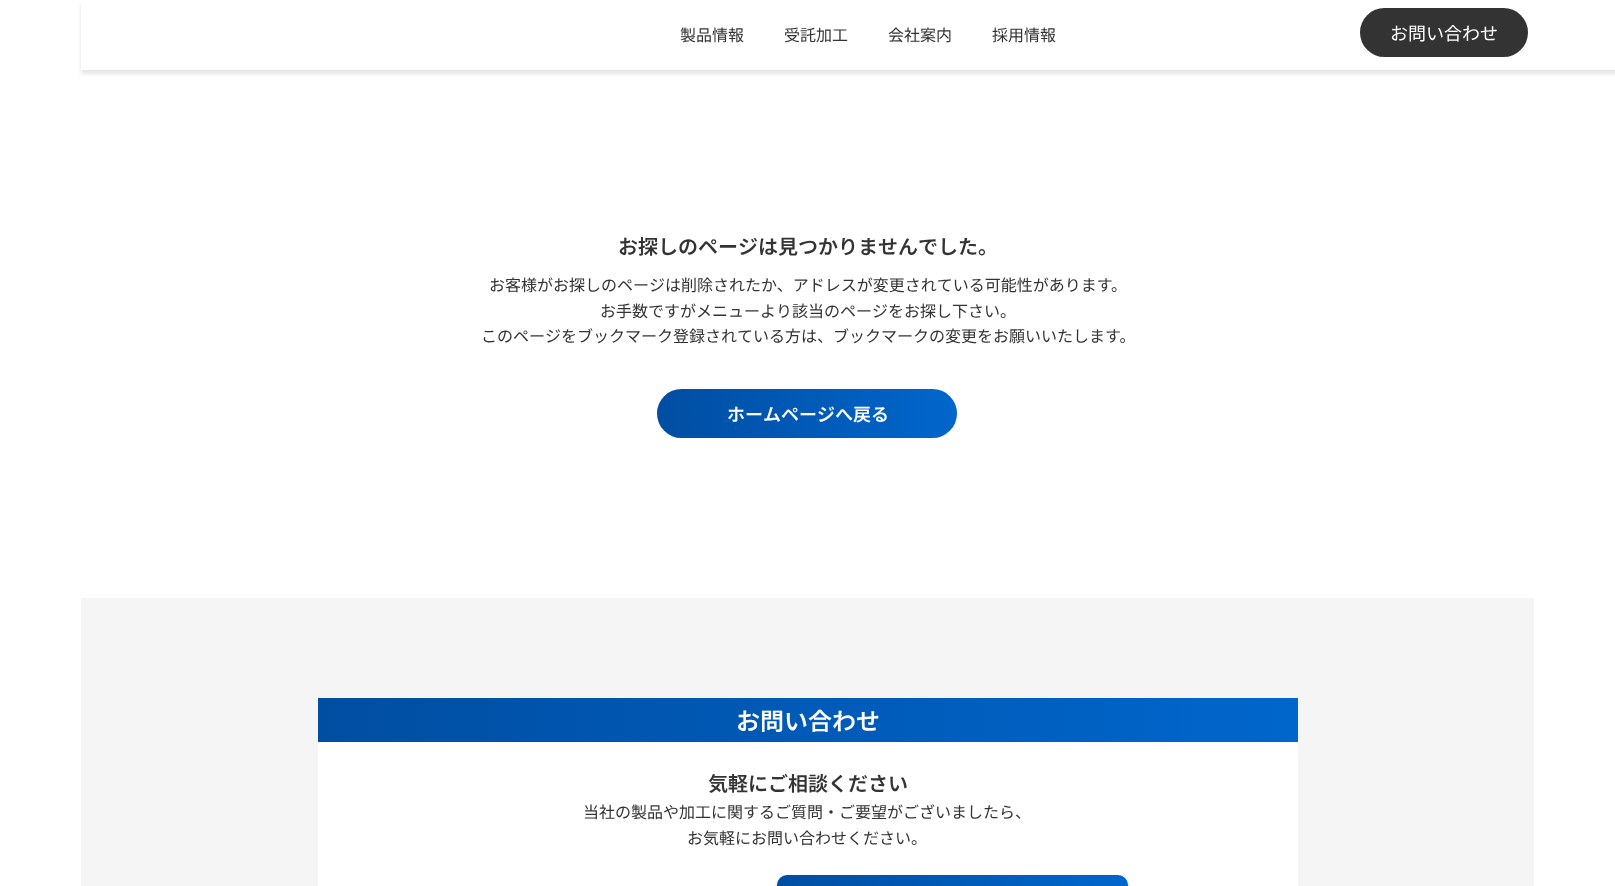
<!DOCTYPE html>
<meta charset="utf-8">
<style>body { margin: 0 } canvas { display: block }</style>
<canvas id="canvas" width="1615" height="886"></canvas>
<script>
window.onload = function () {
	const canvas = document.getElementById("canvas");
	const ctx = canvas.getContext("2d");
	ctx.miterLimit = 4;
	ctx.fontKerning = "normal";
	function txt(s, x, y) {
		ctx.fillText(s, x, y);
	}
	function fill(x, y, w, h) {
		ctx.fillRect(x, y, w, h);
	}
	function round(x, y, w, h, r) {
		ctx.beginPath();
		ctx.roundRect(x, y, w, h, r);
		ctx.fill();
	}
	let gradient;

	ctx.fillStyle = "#FFFFFF";
	fill(0, 0, 1615, 886);
	ctx.save();
	ctx.beginPath();
	ctx.moveTo(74, 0);
	ctx.lineTo(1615, 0);
	ctx.lineTo(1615, 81);
	ctx.lineTo(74, 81);
	ctx.closePath();
	ctx.moveTo(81, 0);
	ctx.lineTo(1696, 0);
	ctx.lineTo(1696, 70);
	ctx.lineTo(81, 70);
	ctx.closePath();
	ctx.clip("evenodd");
	ctx.fillStyle = "rgba(0, 0, 0, 0.1)";
	ctx.filter = "blur(2px)";
	ctx.beginPath();
	ctx.rect(81, 4, 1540, 70);
	ctx.fill();
	ctx.filter = "none";
	ctx.restore();
	ctx.fillStyle = "#333333";
	round(1360, 8, 168, 49, 24.5);
	gradient = ctx.createLinearGradient(657, 414, 957, 414);
	gradient.addColorStop(0, "#004EA2");
	gradient.addColorStop(1, "#0066CC");
	ctx.fillStyle = gradient;
	round(657, 389, 300, 49, 24.5);
	ctx.fillStyle = "#F5F5F5";
	fill(81, 598, 1453, 288);
	ctx.fillStyle = "#FFFFFF";
	fill(318, 742, 980, 144);
	gradient = ctx.createLinearGradient(318, 720, 1298, 720);
	gradient.addColorStop(0, "#004EA2");
	gradient.addColorStop(1, "#0066CC");
	ctx.fillStyle = gradient;
	fill(318, 698, 980, 44);
	ctx.fillStyle = "rgba(0, 0, 0, 0.4)";
	ctx.filter = "blur(2px)";
	ctx.beginPath();
	ctx.roundRect(777, 879, 351, 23, 10);
	ctx.fill();
	ctx.filter = "none";
	gradient = ctx.createLinearGradient(777, 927, 1128, 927);
	gradient.addColorStop(0, "#004EA2");
	gradient.addColorStop(1, "#0066CC");
	ctx.fillStyle = gradient;
	round(777, 875, 351, 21, 10);
	ctx.font = "16px Noto Sans JP";
	ctx.fillStyle = "#333333";
	txt("製品情報", 680, 41);
	txt("受託加工", 784, 41);
	txt("会社案内", 888, 41);
	txt("採用情報", 992, 41);
	ctx.font = "18px Noto Sans JP";
	ctx.fillStyle = "#FFFFFF";
	txt("お問い合わせ", 1390, 40);
	ctx.font = "600 20px Noto Sans JP";
	ctx.fillStyle = "#333333";
	txt("お探しのページは見つかりませんでした。", 618, 254);
	ctx.font = "16px Noto Sans JP";
	txt("お客様がお探しのページは削除されたか、アドレスが変更されている可能性があります。", 489, 291);
	txt("お手数ですがメニューより該当のページをお探し下さい。", 600, 317);
	txt("このページをブックマーク登録されている方は、ブックマークの変更をお願いいたします。", 481, 342);
	ctx.font = "600 18px Noto Sans JP";
	ctx.fillStyle = "#FFFFFF";
	txt("ホームページへ戻る", 727, 421);
	ctx.font = "600 24px Noto Sans JP";
	txt("お問い合わせ", 736, 730);
	ctx.font = "600 20px Noto Sans JP";
	ctx.fillStyle = "#333333";
	txt("気軽にご相談ください", 708, 791);
	ctx.font = "16px Noto Sans JP";
	txt("当社の製品や加工に関するご質問・ご要望がございましたら、", 583, 818);
	txt("お気軽にお問い合わせください。", 687, 844);
};
</script>
